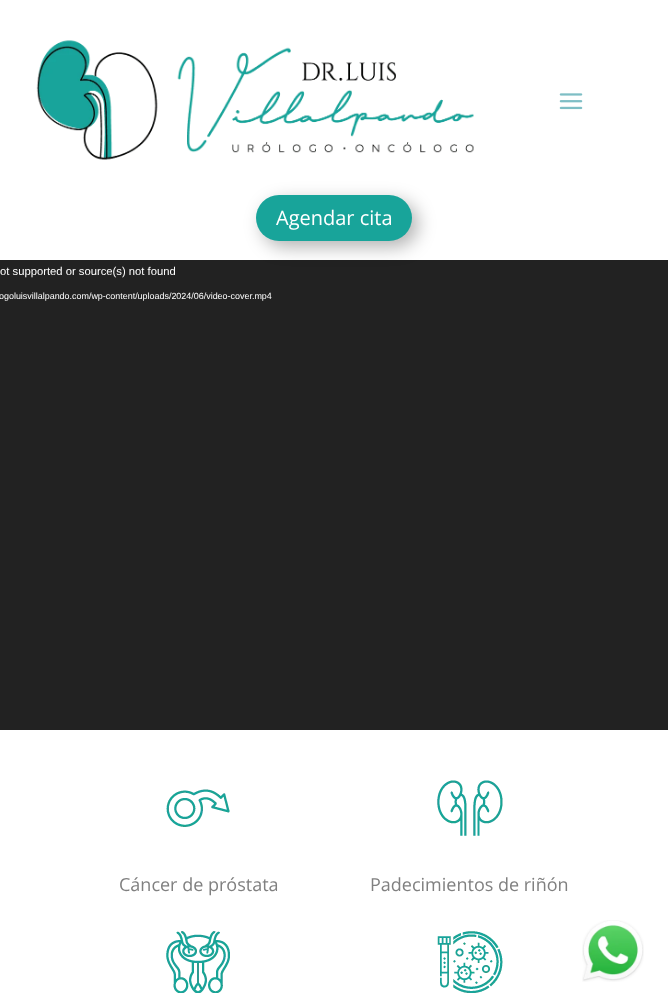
<!DOCTYPE html>
<meta charset="utf-8">
<style>body { margin: 0 } canvas { display: block }</style>
<canvas id="canvas" width="668" height="993"></canvas>
<img id="img1" src="img_01.png" hidden>
<img id="img2" src="img_02.png" hidden>
<img id="img3" src="img_03.png" hidden>
<img id="img4" src="img_04.png" hidden>
<img id="img5" src="img_05.png" hidden>
<img id="img6" src="img_06.png" hidden>
<img id="img7" src="img_07.png" hidden>
<script>
window.onload = function () {
	const canvas = document.getElementById("canvas");
	const ctx = canvas.getContext("2d");
	ctx.miterLimit = 4;
	ctx.fontKerning = "normal";
	function txt(s, x, y) {
		ctx.fillText(s, x, y);
	}
	function fill(x, y, w, h) {
		ctx.fillRect(x, y, w, h);
	}
	function round(x, y, w, h, r) {
		ctx.beginPath();
		ctx.roundRect(x, y, w, h, r);
		ctx.fill();
	}
	function img(id, x, y, w, h) {
		ctx.drawImage(document.getElementById(id), x, y, w, h);
	}

	ctx.fillStyle = "#FFFFFF";
	fill(0, 0, 668, 993);
	img("img1", 36, 40, 438, 120);
	img("img2", 559, 93, 24, 17);
	ctx.fillStyle = "#222222";
	fill(0, 260, 668, 470);
	ctx.fillStyle = "rgba(0, 0, 0, 0.3)";
	ctx.filter = "blur(9px)";
	ctx.beginPath();
	ctx.roundRect(262, 201, 156, 46, 23);
	ctx.fill();
	ctx.filter = "none";
	ctx.fillStyle = "#18A49A";
	round(256, 195, 156, 46, 23);
	img("img3", 166, 789, 64, 38);
	img("img4", 437, 780, 66, 56);
	img("img5", 166, 931, 64, 62);
	img("img6", 437, 931, 66, 62);
	img("img7", 582, 920, 62, 62);
	ctx.font = "20px Open Sans";
	ctx.fillStyle = "#FFFFFF";
	txt("Agendar cita", 276, 225);
	ctx.font = "11.25px Liberation Sans";
	txt("ot supported or source(s) not found", 0, 275);
	ctx.font = "8.95px Liberation Sans";
	txt("ogoluisvillalpando.com/wp-content/uploads/2024/06/video-cover.mp4", -1, 299);
	ctx.font = "18px Open Sans";
	ctx.fillStyle = "#808080";
	txt("Cáncer de próstata", 119, 891);
	txt("Padecimientos de riñón", 370, 891);
};
</script>
